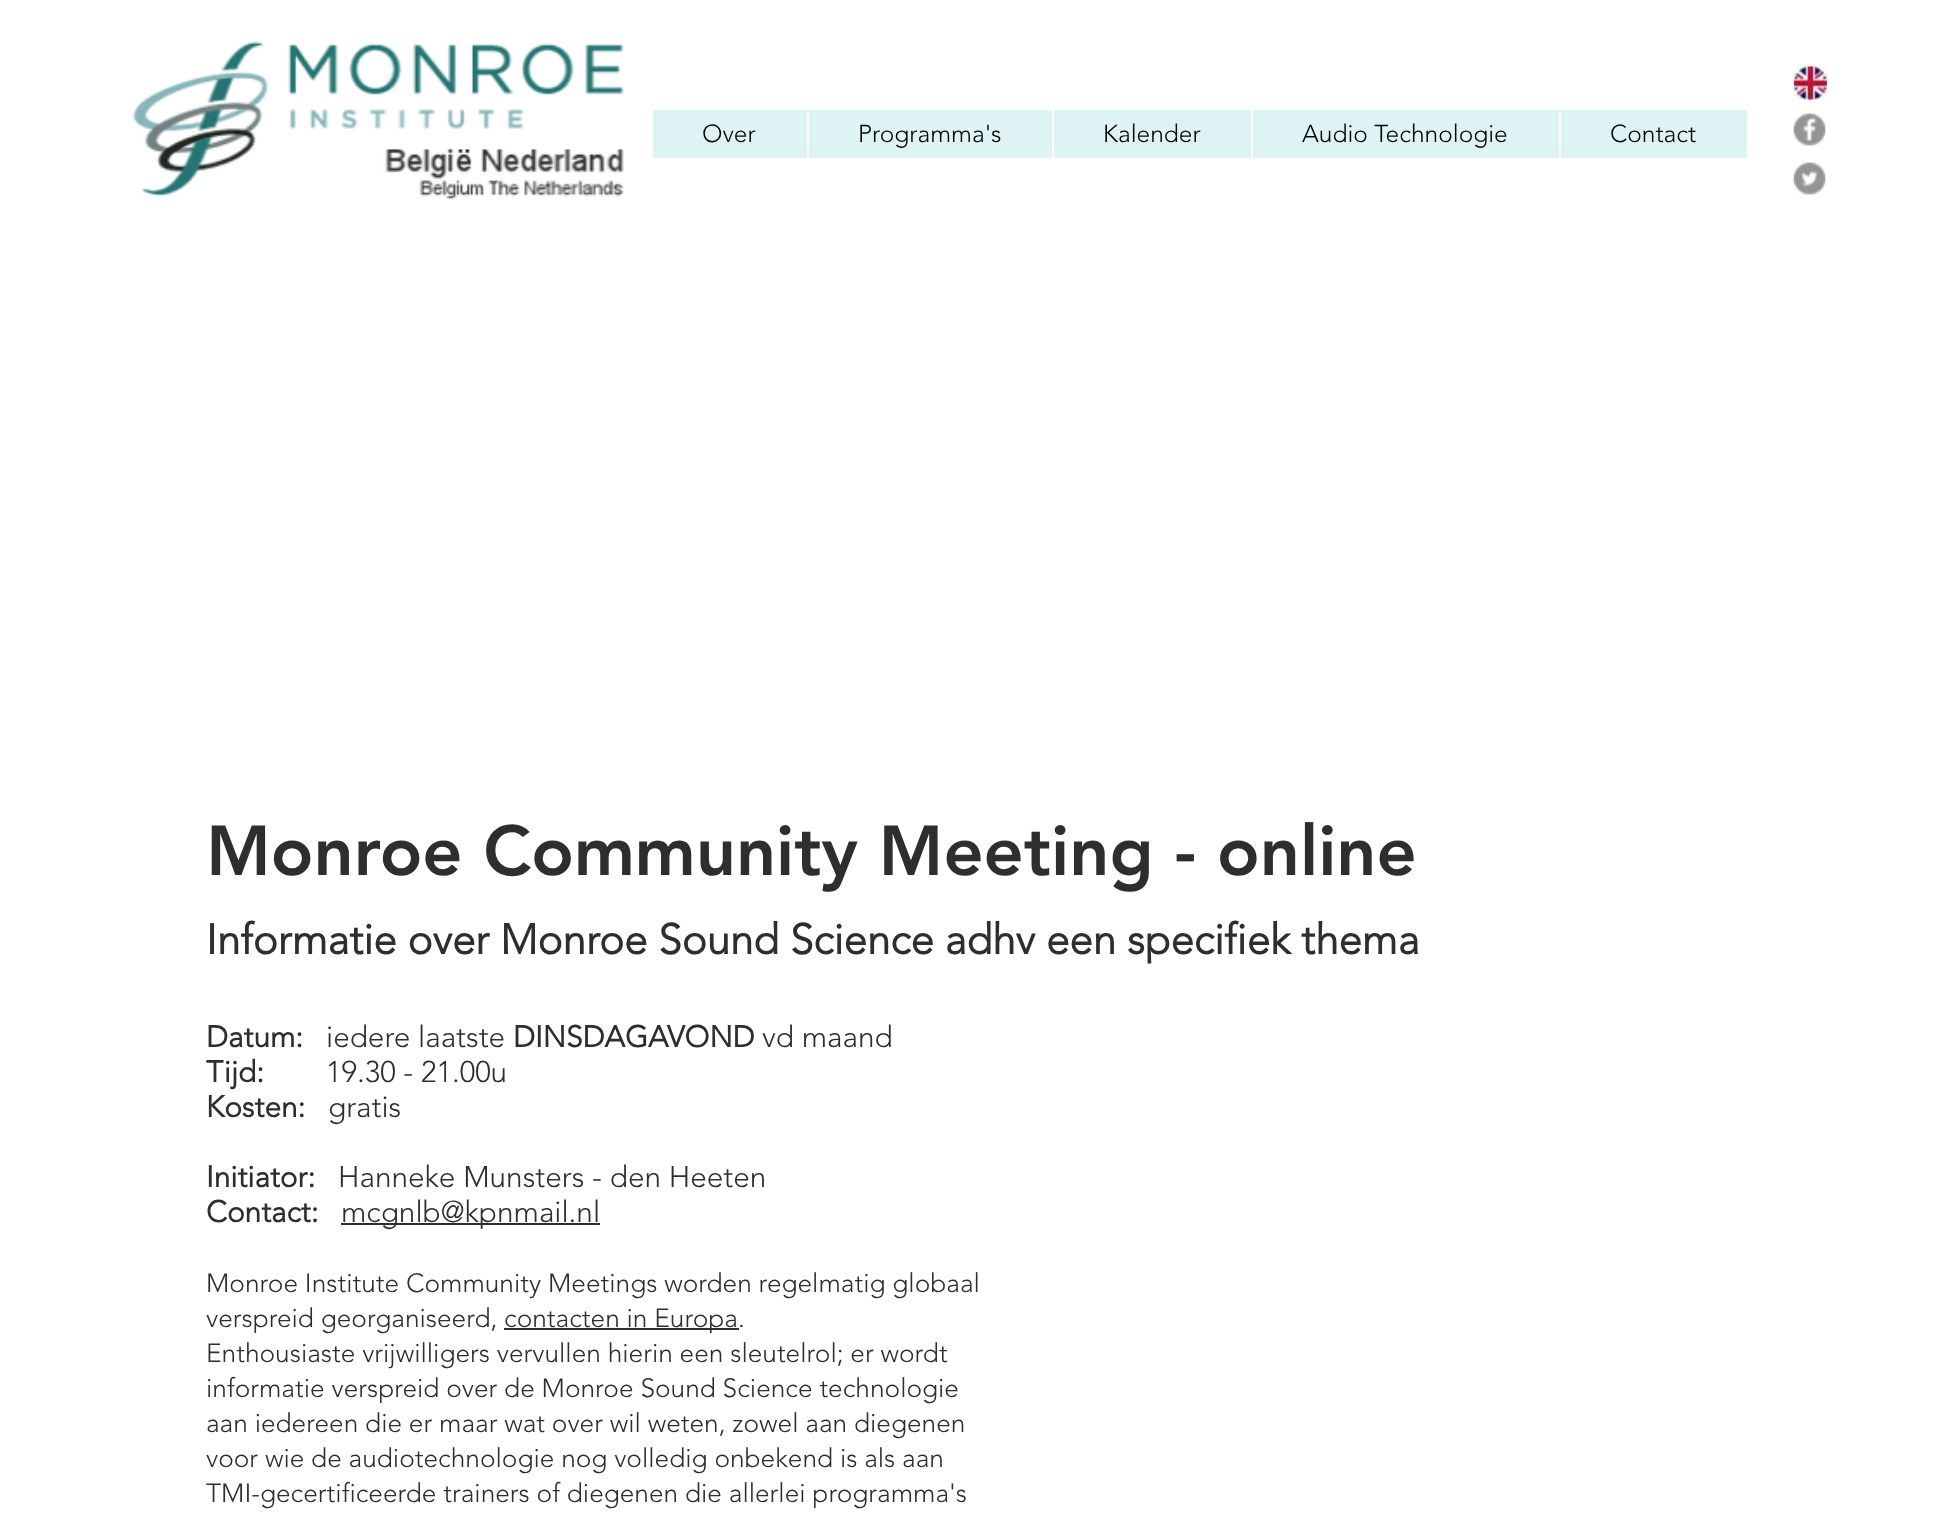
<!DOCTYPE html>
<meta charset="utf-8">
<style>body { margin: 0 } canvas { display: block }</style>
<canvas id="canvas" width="1947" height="1518"></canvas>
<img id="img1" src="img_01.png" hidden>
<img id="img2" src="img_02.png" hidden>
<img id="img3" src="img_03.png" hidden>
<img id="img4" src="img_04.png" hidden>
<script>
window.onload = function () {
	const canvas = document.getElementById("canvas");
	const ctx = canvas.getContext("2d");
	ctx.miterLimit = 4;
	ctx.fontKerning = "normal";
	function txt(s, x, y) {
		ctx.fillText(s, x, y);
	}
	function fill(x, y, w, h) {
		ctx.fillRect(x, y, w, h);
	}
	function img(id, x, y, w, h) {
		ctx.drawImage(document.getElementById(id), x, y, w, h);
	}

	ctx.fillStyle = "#FFFFFF";
	fill(0, 0, 1947, 1518);
	img("img1", 132, 41, 492, 159);
	img("img2", 1793, 66, 34, 35);
	ctx.fillStyle = "#DEF3F3";
	fill(653, 110, 1094, 48);
	ctx.fillStyle = "#FFFFFF";
	fill(807, 110, 2, 48);
	fill(1052, 110, 2, 48);
	fill(1251, 110, 2, 48);
	fill(1559, 110, 2, 48);
	img("img3", 1793, 113, 33, 33);
	img("img4", 1793, 162, 33, 33);
	ctx.fillStyle = "#2F2E2E";
	fill(341, 1223, 259, 2);
	fill(504, 1328, 235, 2);
	ctx.font = "300 24.5px 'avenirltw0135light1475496'";
	ctx.fillStyle = "#000000";
	txt("Over", 702, 142);
	txt("Programma's", 858, 142);
	txt("Kalender", 1103, 142);
	txt("Audio Technologie", 1302, 142);
	txt("Contact", 1610, 142);
	ctx.font = "900 70px 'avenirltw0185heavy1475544'";
	ctx.fillStyle = "#2F2E2E";
	txt("Monroe Community Meeting - online", 206, 875);
	ctx.font = "bold 42px 'avenirltw0135light1475496'";
	txt("Informatie over Monroe Sound Science adhv een specifiek thema", 206, 954);
	ctx.font = "bold 29.75px 'avenirltw0135light1475496'";
	txt("Datum:", 206, 1047);
	ctx.font = "300 29.75px 'avenirltw0135light1475496'";
	txt("iedere laatste", 326, 1047);
	ctx.font = "bold 29.75px 'avenirltw0135light1475496'";
	txt("DINSDAGAVOND", 513, 1047);
	ctx.font = "300 29.75px 'avenirltw0135light1475496'";
	txt("vd maand", 762, 1047);
	ctx.font = "bold 29.75px 'avenirltw0135light1475496'";
	txt("Tijd:", 206, 1082);
	ctx.font = "300 29.75px 'avenirltw0135light1475496'";
	txt("19.30 - 21.00u", 326, 1082);
	ctx.font = "bold 29.75px 'avenirltw0135light1475496'";
	txt("Kosten:", 206, 1117);
	ctx.font = "300 29.75px 'avenirltw0135light1475496'";
	txt("gratis", 328, 1117);
	ctx.font = "bold 29.75px 'avenirltw0135light1475496'";
	txt("Initiator:", 206, 1187);
	ctx.font = "300 29.75px 'avenirltw0135light1475496'";
	txt("Hanneke Munsters - den Heeten", 338, 1187);
	ctx.font = "bold 29.75px 'avenirltw0135light1475496'";
	txt("Contact:", 206, 1222);
	ctx.font = "300 29.75px 'avenirltw0135light1475496'";
	txt("mcgnlb@kpnmail.nl", 341, 1222);
	ctx.font = "300 26.25px 'avenirltw0135light1475496'";
	txt("Monroe Institute Community Meetings worden regelmatig globaal", 206, 1292);
	txt("verspreid georganiseerd,", 206, 1327);
	txt("contacten in Europa.", 504, 1327);
	txt("Enthousiaste vrijwilligers vervullen hierin een sleutelrol; er wordt", 206, 1362);
	txt("informatie verspreid over de Monroe Sound Science technologie", 206, 1397);
	txt("aan iedereen die er maar wat over wil weten, zowel aan diegenen", 206, 1432);
	txt("voor wie de audiotechnologie nog volledig onbekend is als aan", 206, 1467);
	txt("TMI-gecertificeerde trainers of diegenen die allerlei programma's", 206, 1502);
};
</script>
